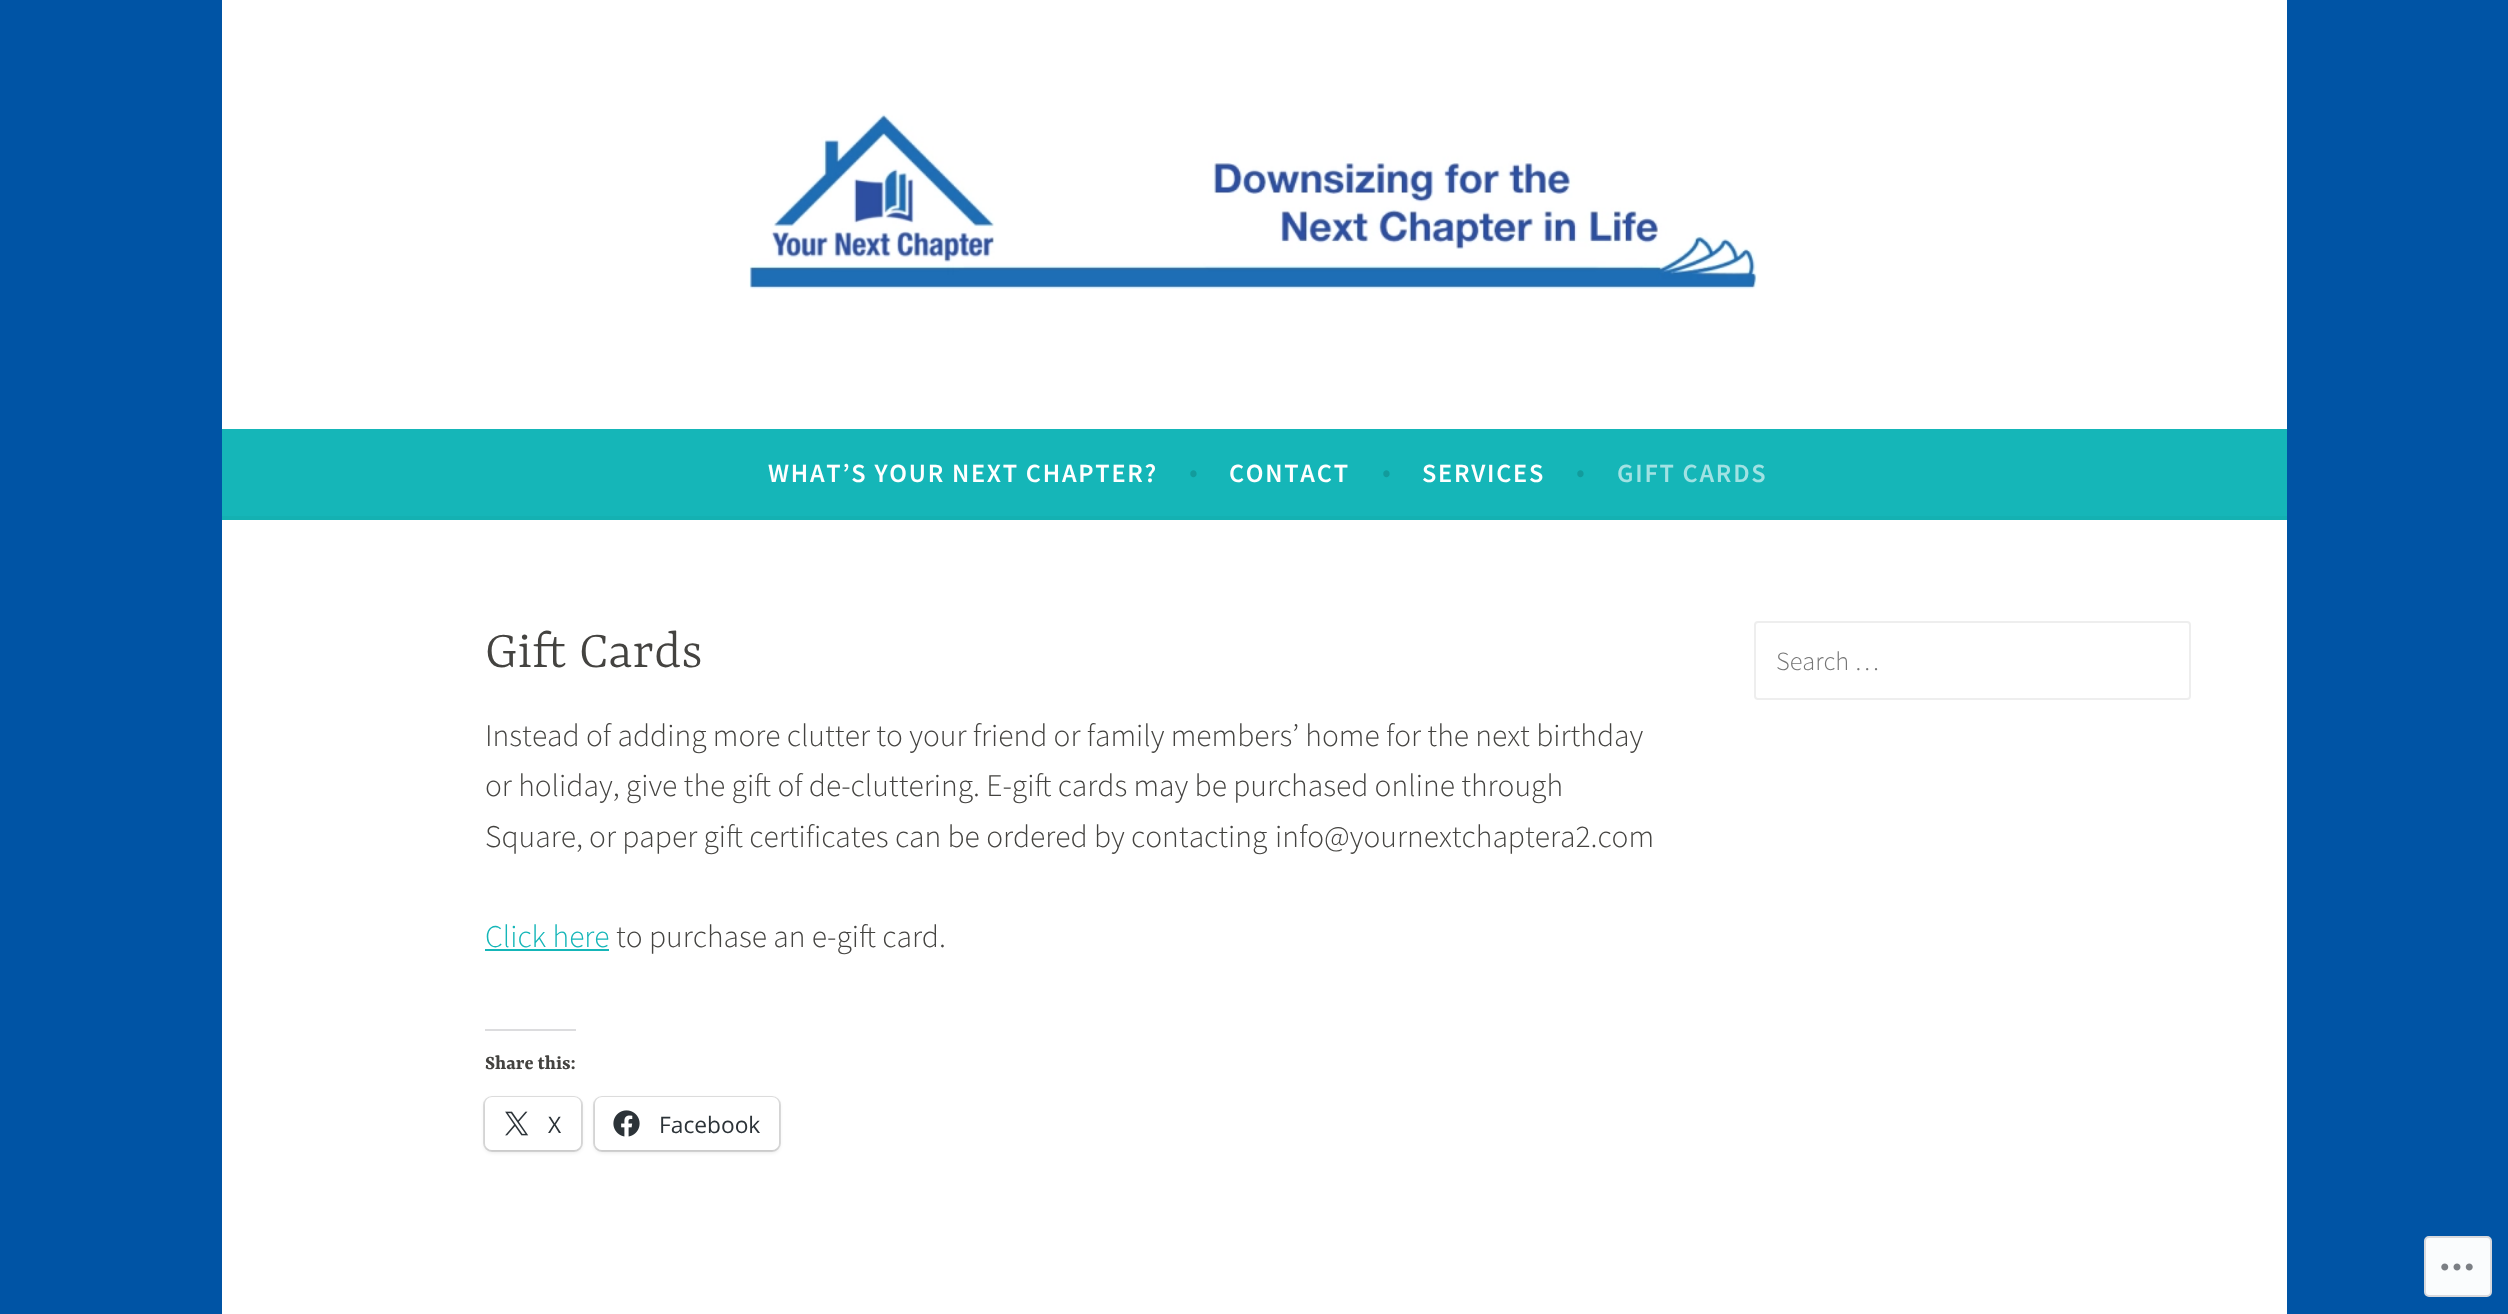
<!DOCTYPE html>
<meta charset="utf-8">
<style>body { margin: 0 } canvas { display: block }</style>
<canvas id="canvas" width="2508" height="1314"></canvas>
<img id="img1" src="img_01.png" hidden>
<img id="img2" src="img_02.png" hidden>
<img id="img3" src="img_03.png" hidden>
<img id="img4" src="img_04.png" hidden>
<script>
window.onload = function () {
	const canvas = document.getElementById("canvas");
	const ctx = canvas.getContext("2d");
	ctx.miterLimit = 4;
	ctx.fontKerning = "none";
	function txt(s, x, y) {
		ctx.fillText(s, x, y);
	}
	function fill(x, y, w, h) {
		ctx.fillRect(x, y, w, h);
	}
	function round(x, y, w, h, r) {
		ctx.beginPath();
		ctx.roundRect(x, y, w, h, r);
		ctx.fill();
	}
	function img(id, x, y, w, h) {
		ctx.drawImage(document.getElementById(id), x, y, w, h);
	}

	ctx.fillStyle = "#0054A5";
	fill(0, 0, 2508, 1314);
	ctx.fillStyle = "#FFFFFF";
	fill(222, 0, 2065, 429);
	img("img1", 749, 114, 1008, 175);
	ctx.fillStyle = "#15B6B8";
	fill(222, 429, 2065, 87);
	ctx.fillStyle = "#14B1B2";
	fill(222, 516, 2065, 4);
	ctx.fillStyle = "#FFFFFF";
	fill(222, 520, 2065, 794);
	ctx.fillStyle = "#15B6B8";
	fill(485, 949, 124, 2);
	ctx.fillStyle = "#DCDCDE";
	fill(485, 1029, 91, 2);
	ctx.beginPath();
	ctx.roundRect(484, 1097, 98, 54, 8);
	ctx.strokeStyle = "#E0E0E0";
	ctx.lineWidth = 2;
	ctx.stroke();
	ctx.fillStyle = "rgba(0, 0, 0, 0.12)";
	ctx.filter = "blur(2px)";
	ctx.beginPath();
	ctx.roundRect(485, 1099, 96, 53, 7);
	ctx.fill();
	ctx.filter = "none";
	ctx.fillStyle = "#FFFFFF";
	round(485, 1097, 96, 53, 7);
	img("img2", 505, 1111, 24, 25);
	ctx.beginPath();
	ctx.roundRect(594, 1097, 186, 54, 8);
	ctx.stroke();
	ctx.fillStyle = "rgba(0, 0, 0, 0.12)";
	ctx.filter = "blur(2px)";
	ctx.beginPath();
	ctx.roundRect(595, 1099, 184, 53, 7);
	ctx.fill();
	ctx.filter = "none";
	ctx.fillStyle = "#FFFFFF";
	round(595, 1097, 184, 53, 7);
	img("img3", 613, 1110, 27, 27);
	ctx.beginPath();
	ctx.roundRect(1755, 622, 435, 77, 3);
	ctx.strokeStyle = "#EEEEEE";
	ctx.stroke();
	ctx.fillStyle = "#FAFCFD";
	ctx.beginPath();
	ctx.roundRect(2425, 1237, 66, 59, 4);
	ctx.fill();
	ctx.strokeStyle = "#D8D9DD";
	ctx.stroke();
	img("img4", 2441, 1263, 32, 8);
	ctx.letterSpacing = "1.75px";
	ctx.font = "600 26.25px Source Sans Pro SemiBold";
	ctx.fillStyle = "#FFFFFF";
	txt("WHAT’S YOUR NEXT CHAPTER?", 768, 482);
	ctx.letterSpacing = "0px";
	ctx.font = "300 31.5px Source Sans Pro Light";
	ctx.fillStyle = "#129B9C";
	txt("•", 1189, 482);
	ctx.letterSpacing = "1.75px";
	ctx.font = "600 26.25px Source Sans Pro SemiBold";
	ctx.fillStyle = "#FFFFFF";
	txt("CONTACT", 1229, 482);
	ctx.letterSpacing = "0px";
	ctx.font = "300 31.5px Source Sans Pro Light";
	ctx.fillStyle = "#129B9C";
	txt("•", 1382, 482);
	ctx.letterSpacing = "1.75px";
	ctx.font = "600 26.25px Source Sans Pro SemiBold";
	ctx.fillStyle = "#FFFFFF";
	txt("SERVICES", 1422, 482);
	ctx.letterSpacing = "0px";
	ctx.font = "300 31.5px Source Sans Pro Light";
	ctx.fillStyle = "#129B9C";
	txt("•", 1576, 482);
	ctx.letterSpacing = "1.75px";
	ctx.font = "600 26.25px Source Sans Pro SemiBold";
	ctx.fillStyle = "#A1E2E3";
	txt("GIFT CARDS", 1617, 482);
	ctx.letterSpacing = "0px";
	ctx.font = "300 56px Yrsa";
	ctx.fillStyle = "#444340";
	txt("Gift Cards", 485, 667);
	ctx.font = "300 31.5px Source Sans Pro Light";
	txt("Instead of adding more clutter to your friend or family members’ home for the next birthday", 485, 746);
	txt("or holiday, give the gift of de-cluttering. E-gift cards may be purchased online through", 485, 796);
	txt("Square, or paper gift certificates can be ordered by contacting", 485, 847);
	txt("info@yournextchaptera2.com", 1275, 847);
	ctx.fillStyle = "#15B6B8";
	txt("Click here", 485, 947);
	ctx.fillStyle = "#444340";
	txt("to purchase an e-gift card.", 616, 947);
	ctx.font = "bold 21px Yrsa";
	txt("Share this:", 485, 1069);
	ctx.font = "22.75px Open Sans";
	ctx.fillStyle = "#2C3338";
	txt("X", 548, 1133);
	txt("Facebook", 659, 1133);
	ctx.font = "300 26.25px Source Sans Pro Light";
	ctx.fillStyle = "#757575";
	txt("Search …", 1776, 670);
};
</script>
